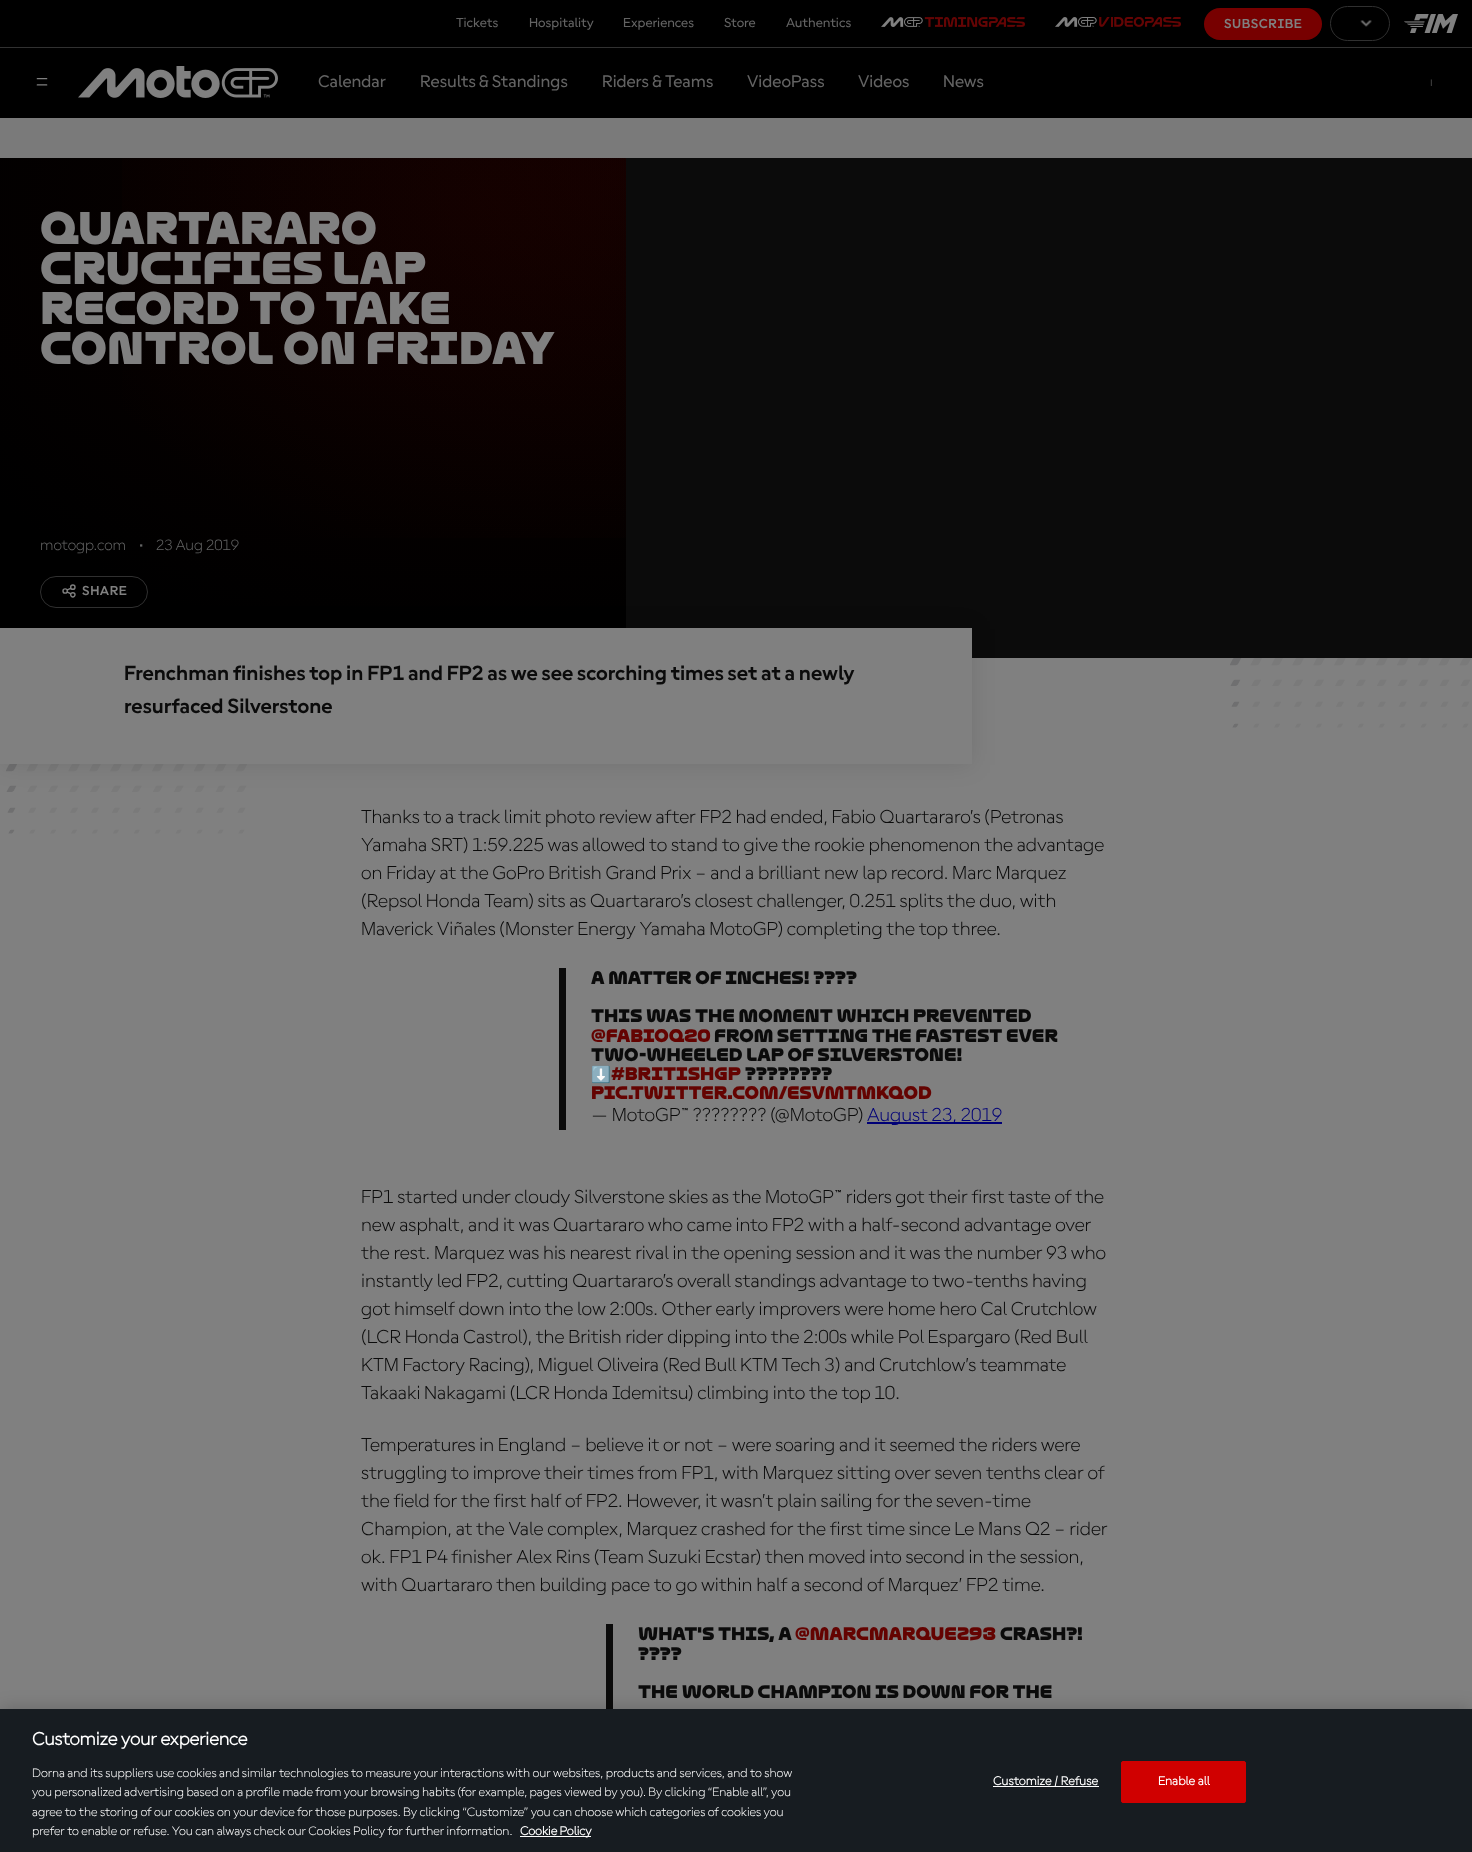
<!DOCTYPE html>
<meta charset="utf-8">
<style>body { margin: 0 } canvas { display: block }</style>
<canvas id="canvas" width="1472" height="1852"></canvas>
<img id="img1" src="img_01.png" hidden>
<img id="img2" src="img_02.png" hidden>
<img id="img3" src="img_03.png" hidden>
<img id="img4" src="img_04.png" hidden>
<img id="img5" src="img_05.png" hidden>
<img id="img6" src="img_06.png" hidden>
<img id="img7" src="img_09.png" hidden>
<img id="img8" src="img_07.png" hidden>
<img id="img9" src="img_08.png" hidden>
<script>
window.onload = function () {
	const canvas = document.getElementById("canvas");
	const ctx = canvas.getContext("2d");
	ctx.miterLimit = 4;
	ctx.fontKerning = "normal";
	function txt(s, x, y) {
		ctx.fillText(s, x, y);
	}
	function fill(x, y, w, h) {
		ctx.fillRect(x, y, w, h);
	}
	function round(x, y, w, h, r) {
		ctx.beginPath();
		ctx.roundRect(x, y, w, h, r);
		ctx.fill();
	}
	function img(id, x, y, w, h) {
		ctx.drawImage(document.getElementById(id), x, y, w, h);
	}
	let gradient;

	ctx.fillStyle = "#7A7A7A";
	fill(0, 0, 1472, 1852);
	ctx.fillStyle = "#000000";
	fill(0, 0, 1472, 47);
	ctx.fillStyle = "#313131";
	fill(0, 47, 1472, 1);
	img("img1", 881, 17, 144, 10);
	img("img2", 1055, 17, 126, 10);
	ctx.fillStyle = "#770000";
	round(1204, 8, 118, 32, 16);
	ctx.beginPath();
	ctx.roundRect(1330.5, 6.5, 59, 34, 17);
	ctx.strokeStyle = "#303030";
	ctx.stroke();
	img("img3", 1360, 20, 12, 7);
	img("img4", 1404, 14, 54, 19);
	ctx.fillStyle = "#000000";
	fill(0, 48, 1472, 70);
	img("img5", 36, 78, 12, 8);
	img("img6", 78, 66, 200, 32);
	ctx.fillStyle = "#808080";
	fill(0, 658, 1472, 1051);
	gradient = ctx.createRadialGradient(477, 285.19, 0, 477, 285.19, 631);
	gradient.addColorStop(0, "#0B0100");
	gradient.addColorStop(1, "#000000");
	ctx.fillStyle = gradient;
	ctx.beginPath();
	ctx.rect(0, 158, 626, 470);
	ctx.save();
	ctx.clip();
	ctx.scale(1, 458 / 631);
	ctx.fillRect(0, 0, 1472, 2552);
	ctx.restore();
	gradient = ctx.createRadialGradient(626, 240.74, 0, 626, 240.74, 606);
	gradient.addColorStop(0, "rgba(74, 2, 1, 0.2)");
	gradient.addColorStop(1, "rgba(74, 2, 1, 0)");
	ctx.fillStyle = gradient;
	ctx.beginPath();
	ctx.rect(122, 158, 504, 380);
	ctx.save();
	ctx.clip();
	ctx.scale(1, 438 / 606);
	ctx.fillRect(0, 0, 1472, 2563);
	ctx.restore();
	ctx.fillStyle = "#0B0B0B";
	fill(626, 158, 846, 500);
	img("img7", 6, 764, 241, 70);
	ctx.fillStyle = "rgba(0, 0, 0, 0.1)";
	ctx.filter = "blur(11.5px)";
	ctx.beginPath();
	ctx.rect(0, 629, 972, 136);
	ctx.fill();
	ctx.filter = "none";
	ctx.beginPath();
	ctx.roundRect(40.5, 576.5, 107, 31, 15.5);
	ctx.stroke();
	img("img8", 62, 584, 14, 14);
	ctx.fillStyle = "#808080";
	fill(0, 628, 972, 136);
	img("img9", 1230, 658, 241, 70);
	ctx.fillStyle = "#0B0B0B";
	fill(559, 968, 7, 162);
	ctx.fillStyle = "#000077";
	fill(867, 1122, 135, 2);
	ctx.fillStyle = "#0B0B0B";
	fill(606, 1624, 7, 85);
	ctx.fillStyle = "rgba(0, 0, 0, 0.2)";
	ctx.filter = "blur(9px)";
	ctx.beginPath();
	ctx.rect(0, 1709, 1472, 143);
	ctx.fill();
	ctx.filter = "none";
	ctx.fillStyle = "#171C21";
	fill(0, 1709, 1472, 143);
	ctx.fillStyle = "#FFFFFF";
	fill(520, 1836, 71, 1);
	fill(993, 1786, 106, 1);
	ctx.fillStyle = "#D00000";
	ctx.beginPath();
	ctx.roundRect(1121.5, 1761.5, 124, 41, 1.5);
	ctx.fill();
	ctx.strokeStyle = "#D00000";
	ctx.stroke();
	ctx.font = "500 14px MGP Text";
	ctx.fillStyle = "#636363";
	txt("Tickets", 456, 27);
	txt("Hospitality", 529, 27);
	txt("Experiences", 623, 27);
	txt("Store", 724, 27);
	txt("Authentics", 786, 27);
	ctx.letterSpacing = "0.5px";
	ctx.font = "bold 14px MGP Text";
	ctx.fillStyle = "#808080";
	txt("SUBSCRIBE", 1224, 28);
	ctx.letterSpacing = "0px";
	ctx.font = "500 18px MGP Text";
	ctx.fillStyle = "#636363";
	txt("Calendar", 318, 87);
	txt("Results & Standings", 420, 87);
	txt("Riders & Teams", 602, 87);
	txt("VideoPass", 747, 87);
	txt("Videos", 858, 87);
	txt("News", 943, 87);
	ctx.font = "300 10px MGP Text";
	ctx.fillStyle = "#808080";
	txt("|", 1430, 86);
	ctx.font = "bold 40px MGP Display";
	txt("Quartararo", 40, 244);
	txt("crucifies lap", 40, 284);
	txt("record to take", 40, 324);
	txt("control on Friday", 40, 364);
	ctx.font = "300 16px MGP Text";
	ctx.fillStyle = "#636363";
	txt("motogp.com", 40, 550);
	ctx.font = "300 14px MGP Text";
	txt("•", 139, 550);
	ctx.font = "300 16px MGP Text";
	txt("23 Aug 2019", 156, 550);
	ctx.letterSpacing = "0.5px";
	ctx.font = "bold 14px MGP Text";
	ctx.fillStyle = "#808080";
	txt("SHARE", 82, 595);
	ctx.letterSpacing = "0px";
	ctx.font = "bold 22px MGP Text";
	ctx.fillStyle = "#0B0B0B";
	txt("Frenchman finishes top in FP1 and FP2 as we see scorching times set at a newly", 124, 680);
	txt("resurfaced Silverstone", 124, 713);
	ctx.font = "300 20px MGP Text";
	txt("Thanks to a track limit photo review after FP2 had ended, Fabio Quartararo’s (Petronas", 361, 823);
	txt("Yamaha SRT) 1:59.225 was allowed to stand to give the rookie phenomenon the advantage", 361, 851);
	txt("on Friday at the GoPro British Grand Prix – and a brilliant new lap record. Marc Marquez", 361, 879);
	txt("(Repsol Honda Team) sits as Quartararo’s closest challenger, 0.251 splits the duo, with", 361, 907);
	txt("Maverick Viñales (Monster Energy Yamaha MotoGP) completing the top three.", 361, 935);
	ctx.font = "bold 16px MGP Display";
	txt("A matter of inches! ????", 591, 984);
	txt("This was the moment which prevented", 591, 1022);
	ctx.fillStyle = "#640301";
	txt("@FabioQ20", 591, 1042);
	ctx.fillStyle = "#0B0B0B";
	txt("from setting the fastest ever", 714, 1042);
	txt("two-wheeled lap of Silverstone!", 591, 1061);
	ctx.font = "bold 16px Noto Color Emoji";
	txt("⬇️", 591, 1080);
	ctx.font = "bold 16px MGP Display";
	ctx.fillStyle = "#640301";
	txt("#BritishGP", 611, 1080);
	ctx.fillStyle = "#0B0B0B";
	txt("????????", 745, 1080);
	ctx.fillStyle = "#640301";
	txt("pic.twitter.com/ESVmtmKQoD", 591, 1099);
	ctx.font = "300 20px MGP Text";
	ctx.fillStyle = "#0B0B0B";
	txt("— MotoGP™ ???????? (@MotoGP)", 591, 1121);
	ctx.fillStyle = "#000077";
	txt("August 23, 2019", 867, 1121);
	ctx.fillStyle = "#0B0B0B";
	txt("FP1 started under cloudy Silverstone skies as the MotoGP™ riders got their first taste of the", 361, 1203);
	txt("new asphalt, and it was Quartararo who came into FP2 with a half-second advantage over", 361, 1231);
	txt("the rest. Marquez was his nearest rival in the opening session and it was the number 93 who", 361, 1259);
	txt("instantly led FP2, cutting Quartararo’s overall standings advantage to two-tenths having", 361, 1287);
	txt("got himself down into the low 2:00s. Other early improvers were home hero Cal Crutchlow", 361, 1315);
	txt("(LCR Honda Castrol), the British rider dipping into the 2:00s while Pol Espargaro (Red Bull", 361, 1343);
	txt("KTM Factory Racing), Miguel Oliveira (Red Bull KTM Tech 3) and Crutchlow’s teammate", 361, 1371);
	txt("Takaaki Nakagami (LCR Honda Idemitsu) climbing into the top 10.", 361, 1399);
	txt("Temperatures in England – believe it or not – were soaring and it seemed the riders were", 361, 1451);
	txt("struggling to improve their times from FP1, with Marquez sitting over seven tenths clear of", 361, 1479);
	txt("the field for the first half of FP2. However, it wasn’t plain sailing for the seven-time", 361, 1507);
	txt("Champion, at the Vale complex, Marquez crashed for the first time since Le Mans Q2 – rider", 361, 1535);
	txt("ok. FP1 P4 finisher Alex Rins (Team Suzuki Ecstar) then moved into second in the session,", 361, 1563);
	txt("with Quartararo then building pace to go within half a second of Marquez’ FP2 time.", 361, 1591);
	ctx.font = "bold 16px MGP Display";
	txt("What's this, a", 638, 1640);
	ctx.fillStyle = "#640301";
	txt("@marcmarquez93", 795, 1640);
	ctx.fillStyle = "#0B0B0B";
	txt("crash?!", 1000, 1640);
	txt("????", 638, 1660);
	txt("The world champion is down for the", 638, 1698);
	ctx.font = "bold 19.25px 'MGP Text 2'";
	ctx.fillStyle = "#FFFFFF";
	txt("Customize your experience", 32, 1745);
	ctx.font = "300 13px MGP Text";
	txt("Dorna and its suppliers use cookies and similar technologies to measure your interactions with our websites, products and services, and to show", 32, 1777);
	txt("you personalized advertising based on a profile made from your browsing habits (for example, pages viewed by you). By clicking “Enable all”, you", 32, 1796);
	txt("agree to the storing of our cookies on your device for those purposes. By clicking “Customize” you can choose which categories of cookies you", 32, 1816);
	txt("prefer to enable or refuse. You can always check our Cookies Policy for further information.", 32, 1835);
	ctx.font = "bold 13px 'MGP Text 2'";
	txt("Cookie Policy", 520, 1835);
	ctx.letterSpacing = "0.1px";
	txt("Customize / Refuse", 993, 1785);
	txt("Enable all", 1158, 1785);
};
</script>
